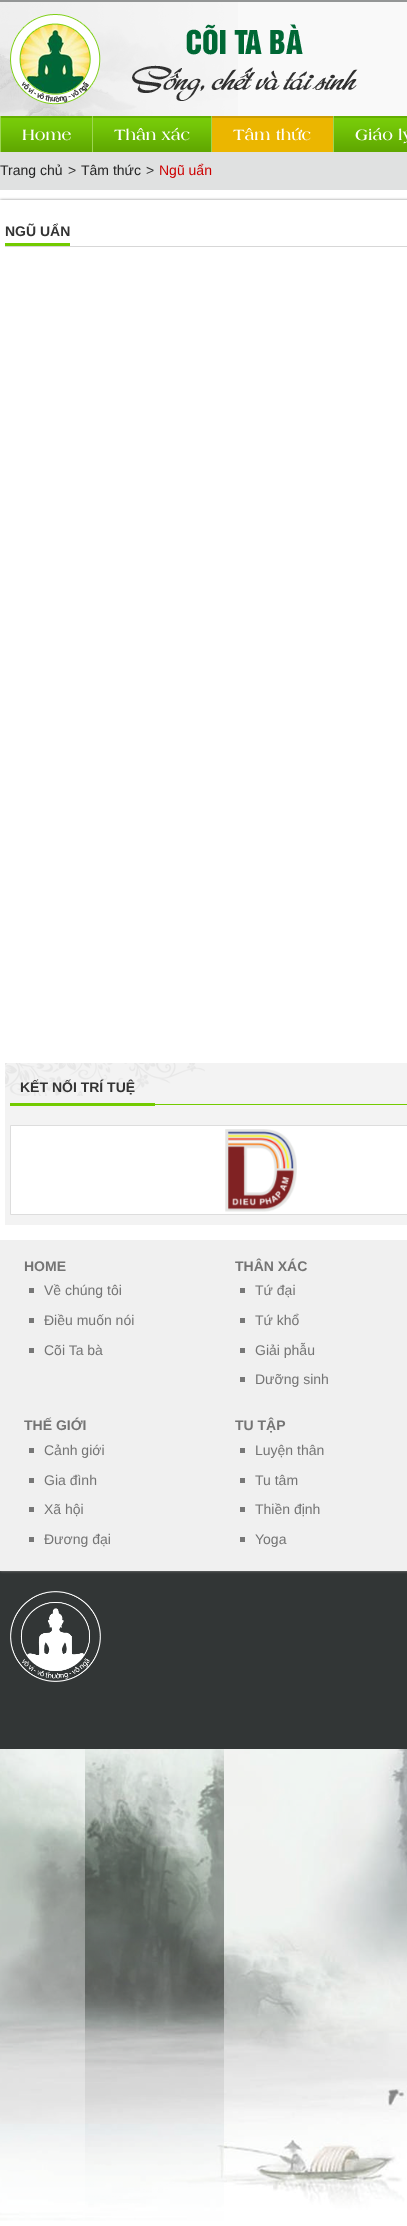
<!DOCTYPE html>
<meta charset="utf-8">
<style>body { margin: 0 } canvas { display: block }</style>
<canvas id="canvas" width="407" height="2226"></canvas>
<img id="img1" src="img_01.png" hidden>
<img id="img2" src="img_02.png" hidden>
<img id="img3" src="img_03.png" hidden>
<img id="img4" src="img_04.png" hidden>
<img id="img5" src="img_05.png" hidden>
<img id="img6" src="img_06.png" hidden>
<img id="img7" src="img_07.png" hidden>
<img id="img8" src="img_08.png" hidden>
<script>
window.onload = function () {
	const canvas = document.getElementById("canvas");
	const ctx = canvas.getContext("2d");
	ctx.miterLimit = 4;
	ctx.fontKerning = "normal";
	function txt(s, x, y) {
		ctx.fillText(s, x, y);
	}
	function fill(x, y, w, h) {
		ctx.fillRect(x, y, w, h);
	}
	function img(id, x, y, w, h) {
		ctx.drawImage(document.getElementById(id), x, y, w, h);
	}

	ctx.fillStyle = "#FFFFFF";
	fill(0, 0, 407, 2226);
	img("img1", 0, 1749, 407, 472);
	ctx.fillStyle = "#F9F9F9";
	fill(238, 2, 169, 114);
	img("img2", 0, 2, 238, 114);
	ctx.fillStyle = "#949696";
	fill(0, 0, 407, 2);
	img("img3", 10, 14, 348, 91);
	img("img4", 1, 116, 406, 36);
	ctx.fillStyle = "#9DD652";
	fill(0, 116, 1, 36);
	fill(92, 116, 1, 36);
	img("img5", 212, 116, 121, 36);
	fill(211, 116, 1, 36);
	fill(333, 116, 1, 36);
	ctx.fillStyle = "#E0E1E1";
	fill(0, 152, 407, 38);
	ctx.fillStyle = "#323636";
	fill(0, 1571, 407, 178);
	ctx.save();
	ctx.beginPath();
	ctx.moveTo(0, 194);
	ctx.lineTo(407, 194);
	ctx.lineTo(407, 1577);
	ctx.lineTo(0, 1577);
	ctx.closePath();
	ctx.moveTo(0, 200);
	ctx.lineTo(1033, 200);
	ctx.lineTo(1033, 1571);
	ctx.lineTo(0, 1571);
	ctx.closePath();
	ctx.clip("evenodd");
	ctx.fillStyle = "#888888";
	ctx.filter = "blur(1.5px)";
	ctx.beginPath();
	ctx.rect(0, 200, 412, 1371);
	ctx.fill();
	ctx.filter = "none";
	ctx.restore();
	ctx.fillStyle = "#D7D7D7";
	fill(5, 246, 402, 1);
	ctx.fillStyle = "#73CB00";
	fill(5, 243, 65, 3);
	ctx.fillStyle = "#F3F3F3";
	fill(5, 1063, 402, 162);
	img("img6", 5, 1063, 200, 33);
	ctx.fillStyle = "#73CB00";
	fill(155, 1104, 252, 1);
	fill(10, 1103, 145, 3);
	ctx.fillStyle = "#FFFFFF";
	ctx.beginPath();
	ctx.rect(10.5, 1125.5, 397, 89);
	ctx.fill();
	ctx.strokeStyle = "#DDDDDD";
	ctx.stroke();
	img("img7", 225, 1129, 72, 83);
	ctx.fillStyle = "#F0F0F0";
	fill(0, 1240, 407, 331);
	ctx.fillStyle = "#777777";
	fill(29, 1288, 5, 5);
	fill(29, 1318, 5, 5);
	fill(29, 1348, 5, 5);
	fill(240, 1288, 5, 5);
	fill(240, 1318, 5, 5);
	fill(240, 1348, 5, 5);
	fill(240, 1377, 5, 5);
	fill(29, 1448, 5, 5);
	fill(29, 1478, 5, 5);
	fill(29, 1507, 5, 5);
	fill(29, 1537, 5, 5);
	fill(240, 1448, 5, 5);
	fill(240, 1478, 5, 5);
	fill(240, 1507, 5, 5);
	fill(240, 1537, 5, 5);
	img("img8", 10, 1591, 91, 91);
	ctx.font = "bold 16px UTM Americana";
	ctx.fillStyle = "#FFFFFF";
	txt("Home", 22, 140);
	txt("Thân xác", 114, 140);
	txt("Tâm thức", 233, 140);
	txt("Giáo lý", 355, 140);
	ctx.font = "14px Liberation Sans";
	ctx.fillStyle = "#232323";
	txt("Trang chủ", 0, 175);
	ctx.fillStyle = "#333333";
	txt(">", 68, 175);
	ctx.fillStyle = "#232323";
	txt("Tâm thức", 81, 175);
	ctx.fillStyle = "#333333";
	txt(">", 146, 175);
	ctx.fillStyle = "#CD0000";
	txt("Ngũ uẩn", 159, 175);
	ctx.font = "bold 14px Liberation Sans";
	ctx.fillStyle = "#333333";
	txt("NGŨ UẨN", 5, 236);
	txt("KẾT NỐI TRÍ TUỆ", 20, 1092);
	ctx.fillStyle = "#747474";
	txt("HOME", 24, 1271);
	ctx.font = "14px Liberation Sans";
	txt("Về chúng tôi", 44, 1295);
	txt("Điều muốn nói", 44, 1325);
	txt("Cõi Ta bà", 44, 1355);
	ctx.font = "bold 14px Liberation Sans";
	txt("THÂN XÁC", 235, 1271);
	ctx.font = "14px Liberation Sans";
	txt("Tứ đại", 255, 1295);
	txt("Tứ khổ", 255, 1325);
	txt("Giải phẫu", 255, 1355);
	txt("Dưỡng sinh", 255, 1384);
	ctx.font = "bold 14px Liberation Sans";
	txt("THẾ GIỚI", 24, 1430);
	ctx.font = "14px Liberation Sans";
	txt("Cảnh giới", 44, 1455);
	txt("Gia đình", 44, 1485);
	txt("Xã hội", 44, 1514);
	txt("Đương đại", 44, 1544);
	ctx.font = "bold 14px Liberation Sans";
	txt("TU TẬP", 235, 1430);
	ctx.font = "14px Liberation Sans";
	txt("Luyện thân", 255, 1455);
	txt("Tu tâm", 255, 1485);
	txt("Thiền định", 255, 1514);
	txt("Yoga", 255, 1544);
};
</script>
